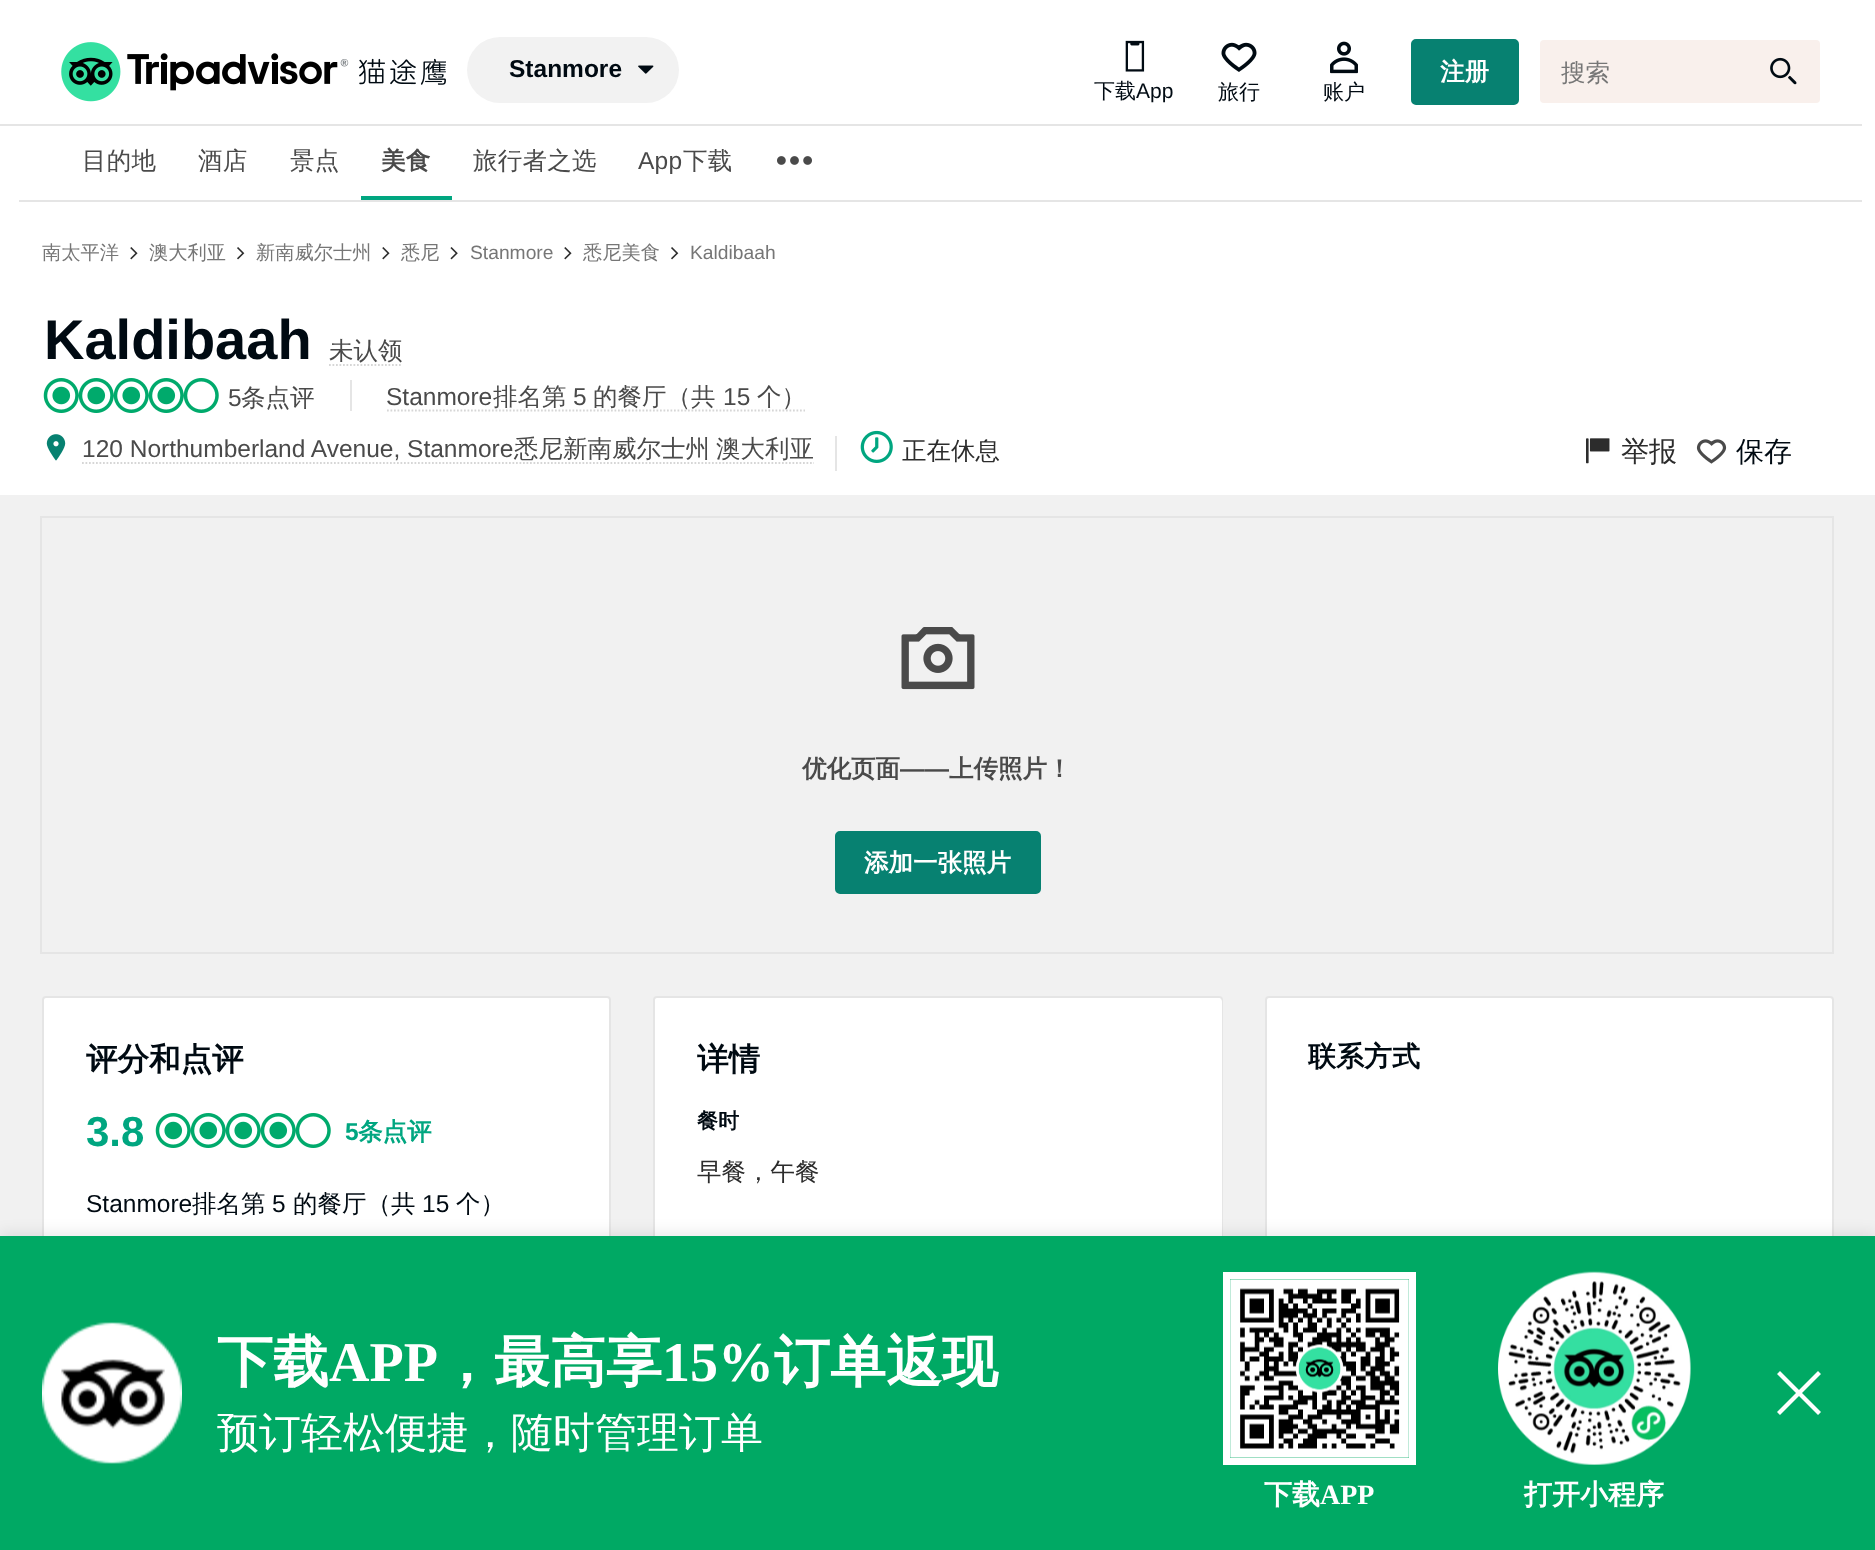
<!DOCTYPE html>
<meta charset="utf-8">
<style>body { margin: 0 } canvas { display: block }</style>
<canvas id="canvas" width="1875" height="1550"></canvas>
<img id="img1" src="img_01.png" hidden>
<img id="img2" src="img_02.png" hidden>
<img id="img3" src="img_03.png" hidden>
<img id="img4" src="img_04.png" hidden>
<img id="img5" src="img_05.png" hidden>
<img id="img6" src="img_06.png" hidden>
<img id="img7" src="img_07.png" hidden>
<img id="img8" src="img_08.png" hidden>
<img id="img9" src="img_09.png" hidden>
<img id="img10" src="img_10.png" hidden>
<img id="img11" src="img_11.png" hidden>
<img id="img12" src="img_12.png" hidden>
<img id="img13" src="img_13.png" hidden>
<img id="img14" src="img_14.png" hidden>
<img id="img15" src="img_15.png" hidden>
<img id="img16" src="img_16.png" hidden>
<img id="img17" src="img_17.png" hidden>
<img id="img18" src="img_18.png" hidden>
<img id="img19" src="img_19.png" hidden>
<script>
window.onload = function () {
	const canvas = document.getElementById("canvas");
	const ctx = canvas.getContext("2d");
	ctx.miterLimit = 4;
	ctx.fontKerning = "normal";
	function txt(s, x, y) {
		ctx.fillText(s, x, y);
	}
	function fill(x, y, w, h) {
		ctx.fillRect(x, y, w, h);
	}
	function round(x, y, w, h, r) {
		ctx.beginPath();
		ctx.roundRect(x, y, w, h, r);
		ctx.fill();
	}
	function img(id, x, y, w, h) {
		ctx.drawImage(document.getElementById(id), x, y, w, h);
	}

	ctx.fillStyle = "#F1F1F1";
	fill(0, 0, 1875, 1550);
	ctx.fillStyle = "#FFFFFF";
	fill(0, 0, 1875, 219);
	img("img1", 61, 42, 385, 60);
	ctx.fillStyle = "#F2F2F2";
	round(467, 37, 212, 66, 33);
	img("img2", 638, 65, 16, 9);
	ctx.fillStyle = "#078171";
	ctx.beginPath();
	ctx.roundRect(1412, 40, 106, 64, 4);
	ctx.fill();
	ctx.strokeStyle = "#078171";
	ctx.lineWidth = 2;
	ctx.stroke();
	img("img3", 1125, 40, 20, 32);
	img("img4", 1221, 42, 36, 30);
	img("img5", 1330, 41, 28, 33);
	ctx.fillStyle = "#F9F0EC";
	round(1540, 40, 280, 63, 4);
	img("img6", 1770, 57, 27, 28);
	ctx.fillStyle = "#E5E5E5";
	fill(0, 124, 1862, 2);
	fill(19, 200, 1843, 2);
	ctx.fillStyle = "#00A680";
	fill(361, 196, 91, 4);
	img("img7", 777, 156, 35, 9);
	ctx.fillStyle = "#FFFFFF";
	fill(0, 219, 1875, 276);
	img("img8", 130, 247, 8, 13);
	img("img9", 237, 247, 8, 13);
	img("img8", 382, 247, 8, 13);
	img("img10", 450, 247, 8, 13);
	img("img8", 564, 247, 8, 13);
	img("img9", 671, 247, 8, 13);
	ctx.beginPath();
	ctx.moveTo(329, 365);
	ctx.lineTo(402.5, 365);
	ctx.strokeStyle = "#D6D6D6";
	ctx.lineWidth = 1.8;
	ctx.setLineDash([1.75, 1.75]);
	ctx.stroke();
	img("img11", 43, 378, 176, 35);
	ctx.fillStyle = "#E5E5E5";
	fill(350, 380, 2, 31);
	ctx.beginPath();
	ctx.moveTo(387, 410.5);
	ctx.lineTo(805, 410.5);
	ctx.stroke();
	img("img12", 46, 434, 20, 27);
	ctx.beginPath();
	ctx.moveTo(82, 463);
	ctx.lineTo(814, 463);
	ctx.stroke();
	fill(835, 436, 2, 35);
	img("img13", 860, 430, 33, 33);
	img("img14", 1586, 438, 24, 26);
	img("img15", 1696, 439, 31, 25);
	ctx.strokeStyle = "#E5E5E5";
	ctx.lineWidth = 2;
	ctx.setLineDash([]);
	ctx.strokeRect(41, 517, 1792, 436);
	img("img16", 901, 627, 74, 63);
	ctx.fillStyle = "#078171";
	ctx.beginPath();
	ctx.roundRect(836, 832, 204, 61, 4);
	ctx.fill();
	ctx.strokeStyle = "#078171";
	ctx.stroke();
	ctx.fillStyle = "#FFFFFF";
	ctx.beginPath();
	ctx.roundRect(43, 997, 567, 500, 3);
	ctx.fill();
	ctx.strokeStyle = "#E5E5E5";
	ctx.stroke();
	img("img11", 155, 1113, 176, 35);
	ctx.beginPath();
	ctx.roundRect(654, 997, 568, 500, 3);
	ctx.fill();
	ctx.stroke();
	round(655, 998, 567, 367, 4);
	ctx.beginPath();
	ctx.roundRect(1266, 997, 567, 500, 3);
	ctx.fill();
	ctx.stroke();
	ctx.fillStyle = "rgba(0, 0, 0, 0.08)";
	ctx.filter = "blur(7px)";
	ctx.beginPath();
	ctx.rect(0, 1232, 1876, 315);
	ctx.fill();
	ctx.filter = "none";
	ctx.fillStyle = "#00A964";
	fill(0, 1236, 1875, 314);
	img("img17", 42, 1322, 140, 142);
	ctx.fillStyle = "#FFFFFF";
	ctx.beginPath();
	ctx.moveTo(1818, 1371);
	ctx.lineTo(1821, 1374);
	ctx.lineTo(1802, 1393);
	ctx.lineTo(1821, 1412);
	ctx.lineTo(1818, 1415);
	ctx.lineTo(1799, 1396);
	ctx.lineTo(1780, 1415);
	ctx.lineTo(1777, 1412);
	ctx.lineTo(1796, 1393);
	ctx.lineTo(1777, 1374);
	ctx.lineTo(1780, 1371);
	ctx.lineTo(1799, 1390);
	ctx.closePath();
	ctx.fill();
	ctx.strokeStyle = "#FFFFFF";
	ctx.lineWidth = 7;
	ctx.strokeRect(1226.5, 1275.5, 186, 186);
	img("img18", 1230, 1279, 179, 179);
	img("img19", 1498, 1271, 193, 194);
	ctx.font = "bold 24.5px Liberation Sans";
	ctx.fillStyle = "#000A12";
	txt("Stanmore", 509, 77);
	ctx.font = "bold 24.5px WenQuanYi Zen Hei";
	ctx.fillStyle = "#FFFFFF";
	txt("注册", 1440, 80);
	ctx.font = "500 21px WenQuanYi Zen Hei";
	ctx.fillStyle = "#000A12";
	txt("下载", 1094, 98);
	ctx.font = "21px Liberation Sans";
	txt("App", 1136, 98);
	ctx.font = "500 21px WenQuanYi Zen Hei";
	txt("旅行", 1218, 99);
	txt("账户", 1323, 99);
	ctx.font = "500 24.5px WenQuanYi Zen Hei";
	ctx.fillStyle = "#767676";
	txt("搜索", 1561, 81);
	ctx.letterSpacing = "0.25px";
	ctx.fillStyle = "#4A4A4A";
	txt("目的地", 82, 169);
	txt("酒店", 198, 169);
	txt("景点", 290, 169);
	ctx.font = "bold 24.5px WenQuanYi Zen Hei";
	txt("美食", 381, 169);
	ctx.font = "500 24.5px WenQuanYi Zen Hei";
	txt("旅行者之选", 473, 169);
	ctx.font = "24.5px Liberation Sans";
	txt("App", 638, 169);
	ctx.font = "500 24.5px WenQuanYi Zen Hei";
	txt("下载", 683, 169);
	ctx.letterSpacing = "0px";
	ctx.font = "500 19.25px WenQuanYi Zen Hei";
	ctx.fillStyle = "#767676";
	txt("南太平洋", 42, 259);
	txt("澳大利亚", 149, 259);
	txt("新南威尔士州", 256, 259);
	txt("悉尼", 401, 259);
	ctx.font = "19.25px Liberation Sans";
	txt("Stanmore", 470, 259);
	ctx.font = "500 19.25px WenQuanYi Zen Hei";
	txt("悉尼美食", 583, 259);
	ctx.font = "19.25px Liberation Sans";
	txt("Kaldibaah", 690, 259);
	ctx.font = "bold 56px Liberation Sans";
	ctx.fillStyle = "#000A12";
	txt("Kaldibaah", 44, 359);
	ctx.font = "500 24.5px WenQuanYi Zen Hei";
	ctx.fillStyle = "#4A4A4A";
	txt("未认领", 329, 359);
	ctx.font = "24.5px Liberation Sans";
	txt("5", 228, 406);
	ctx.font = "500 24.5px WenQuanYi Zen Hei";
	txt("条点评", 241, 406);
	ctx.font = "24.5px Liberation Sans";
	txt("Stanmore", 386, 405);
	ctx.font = "500 24.5px WenQuanYi Zen Hei";
	txt("排名第", 493, 405);
	ctx.font = "24.5px Liberation Sans";
	txt("5", 573, 405);
	ctx.font = "500 24.5px WenQuanYi Zen Hei";
	txt("的餐厅（共", 593, 405);
	ctx.font = "24.5px Liberation Sans";
	txt("15", 723, 405);
	ctx.font = "500 24.5px WenQuanYi Zen Hei";
	txt("个）", 757, 405);
	ctx.font = "24.5px Liberation Sans";
	txt("120 Northumberland Avenue, Stanmore", 82, 457);
	ctx.font = "500 24.5px WenQuanYi Zen Hei";
	txt("悉尼新南威尔士州", 514, 457);
	txt("澳大利亚", 716, 457);
	ctx.fillStyle = "#2C2C2C";
	txt("正在休息", 902, 459);
	ctx.font = "500 28px WenQuanYi Zen Hei";
	txt("举报", 1621, 461);
	ctx.fillStyle = "#000A12";
	txt("保存", 1736, 461);
	ctx.font = "bold 24.5px WenQuanYi Zen Hei";
	ctx.fillStyle = "#4A4A4A";
	txt("优化页面", 802, 777);
	ctx.font = "bold 24.5px Liberation Sans";
	txt("——", 900, 777);
	ctx.font = "bold 24.5px WenQuanYi Zen Hei";
	txt("上传照片！", 949, 777);
	ctx.fillStyle = "#FFFFFF";
	txt("添加一张照片", 864, 871);
	ctx.font = "bold 31.5px WenQuanYi Zen Hei";
	ctx.fillStyle = "#000A12";
	txt("评分和点评", 86, 1070);
	ctx.font = "bold 42px Liberation Sans";
	ctx.fillStyle = "#00A680";
	txt("3.8", 86, 1146);
	ctx.font = "bold 24.5px Liberation Sans";
	txt("5", 345, 1140);
	ctx.font = "bold 24.5px WenQuanYi Zen Hei";
	txt("条点评", 358, 1140);
	ctx.font = "24.5px Liberation Sans";
	ctx.fillStyle = "#000A12";
	txt("Stanmore", 86, 1212);
	ctx.font = "500 24.5px WenQuanYi Zen Hei";
	txt("排名第", 192, 1212);
	ctx.font = "24.5px Liberation Sans";
	txt("5", 272, 1212);
	ctx.font = "500 24.5px WenQuanYi Zen Hei";
	txt("的餐厅（共", 293, 1212);
	ctx.font = "24.5px Liberation Sans";
	txt("15", 422, 1212);
	ctx.font = "500 24.5px WenQuanYi Zen Hei";
	txt("个）", 456, 1212);
	ctx.font = "bold 31.5px WenQuanYi Zen Hei";
	txt("详情", 697, 1070);
	ctx.font = "bold 21px WenQuanYi Zen Hei";
	txt("餐时", 697, 1128);
	ctx.font = "500 24.5px WenQuanYi Zen Hei";
	ctx.fillStyle = "#2C2C2C";
	txt("早餐，午餐", 697, 1180);
	ctx.font = "bold 28px WenQuanYi Zen Hei";
	ctx.fillStyle = "#000A12";
	txt("联系方式", 1308, 1066);
	ctx.font = "bold 56px WenQuanYi Zen Hei";
	ctx.fillStyle = "#FFFFFF";
	txt("下载", 217, 1381);
	ctx.font = "bold 56px Liberation Serif";
	txt("APP", 329, 1381);
	ctx.font = "bold 56px WenQuanYi Zen Hei";
	txt("，最高享", 438, 1381);
	ctx.font = "bold 56px Liberation Serif";
	txt("15%", 662, 1381);
	ctx.font = "bold 56px WenQuanYi Zen Hei";
	txt("订单返现", 774, 1381);
	ctx.font = "500 42px WenQuanYi Zen Hei";
	txt("预订轻松便捷，随时管理订单", 217, 1447);
	ctx.font = "bold 28px WenQuanYi Zen Hei";
	txt("下载", 1264, 1504);
	ctx.font = "bold 28px Liberation Serif";
	txt("APP", 1320, 1504);
	ctx.font = "bold 28px WenQuanYi Zen Hei";
	txt("打开小程序", 1524, 1504);
};
</script>
